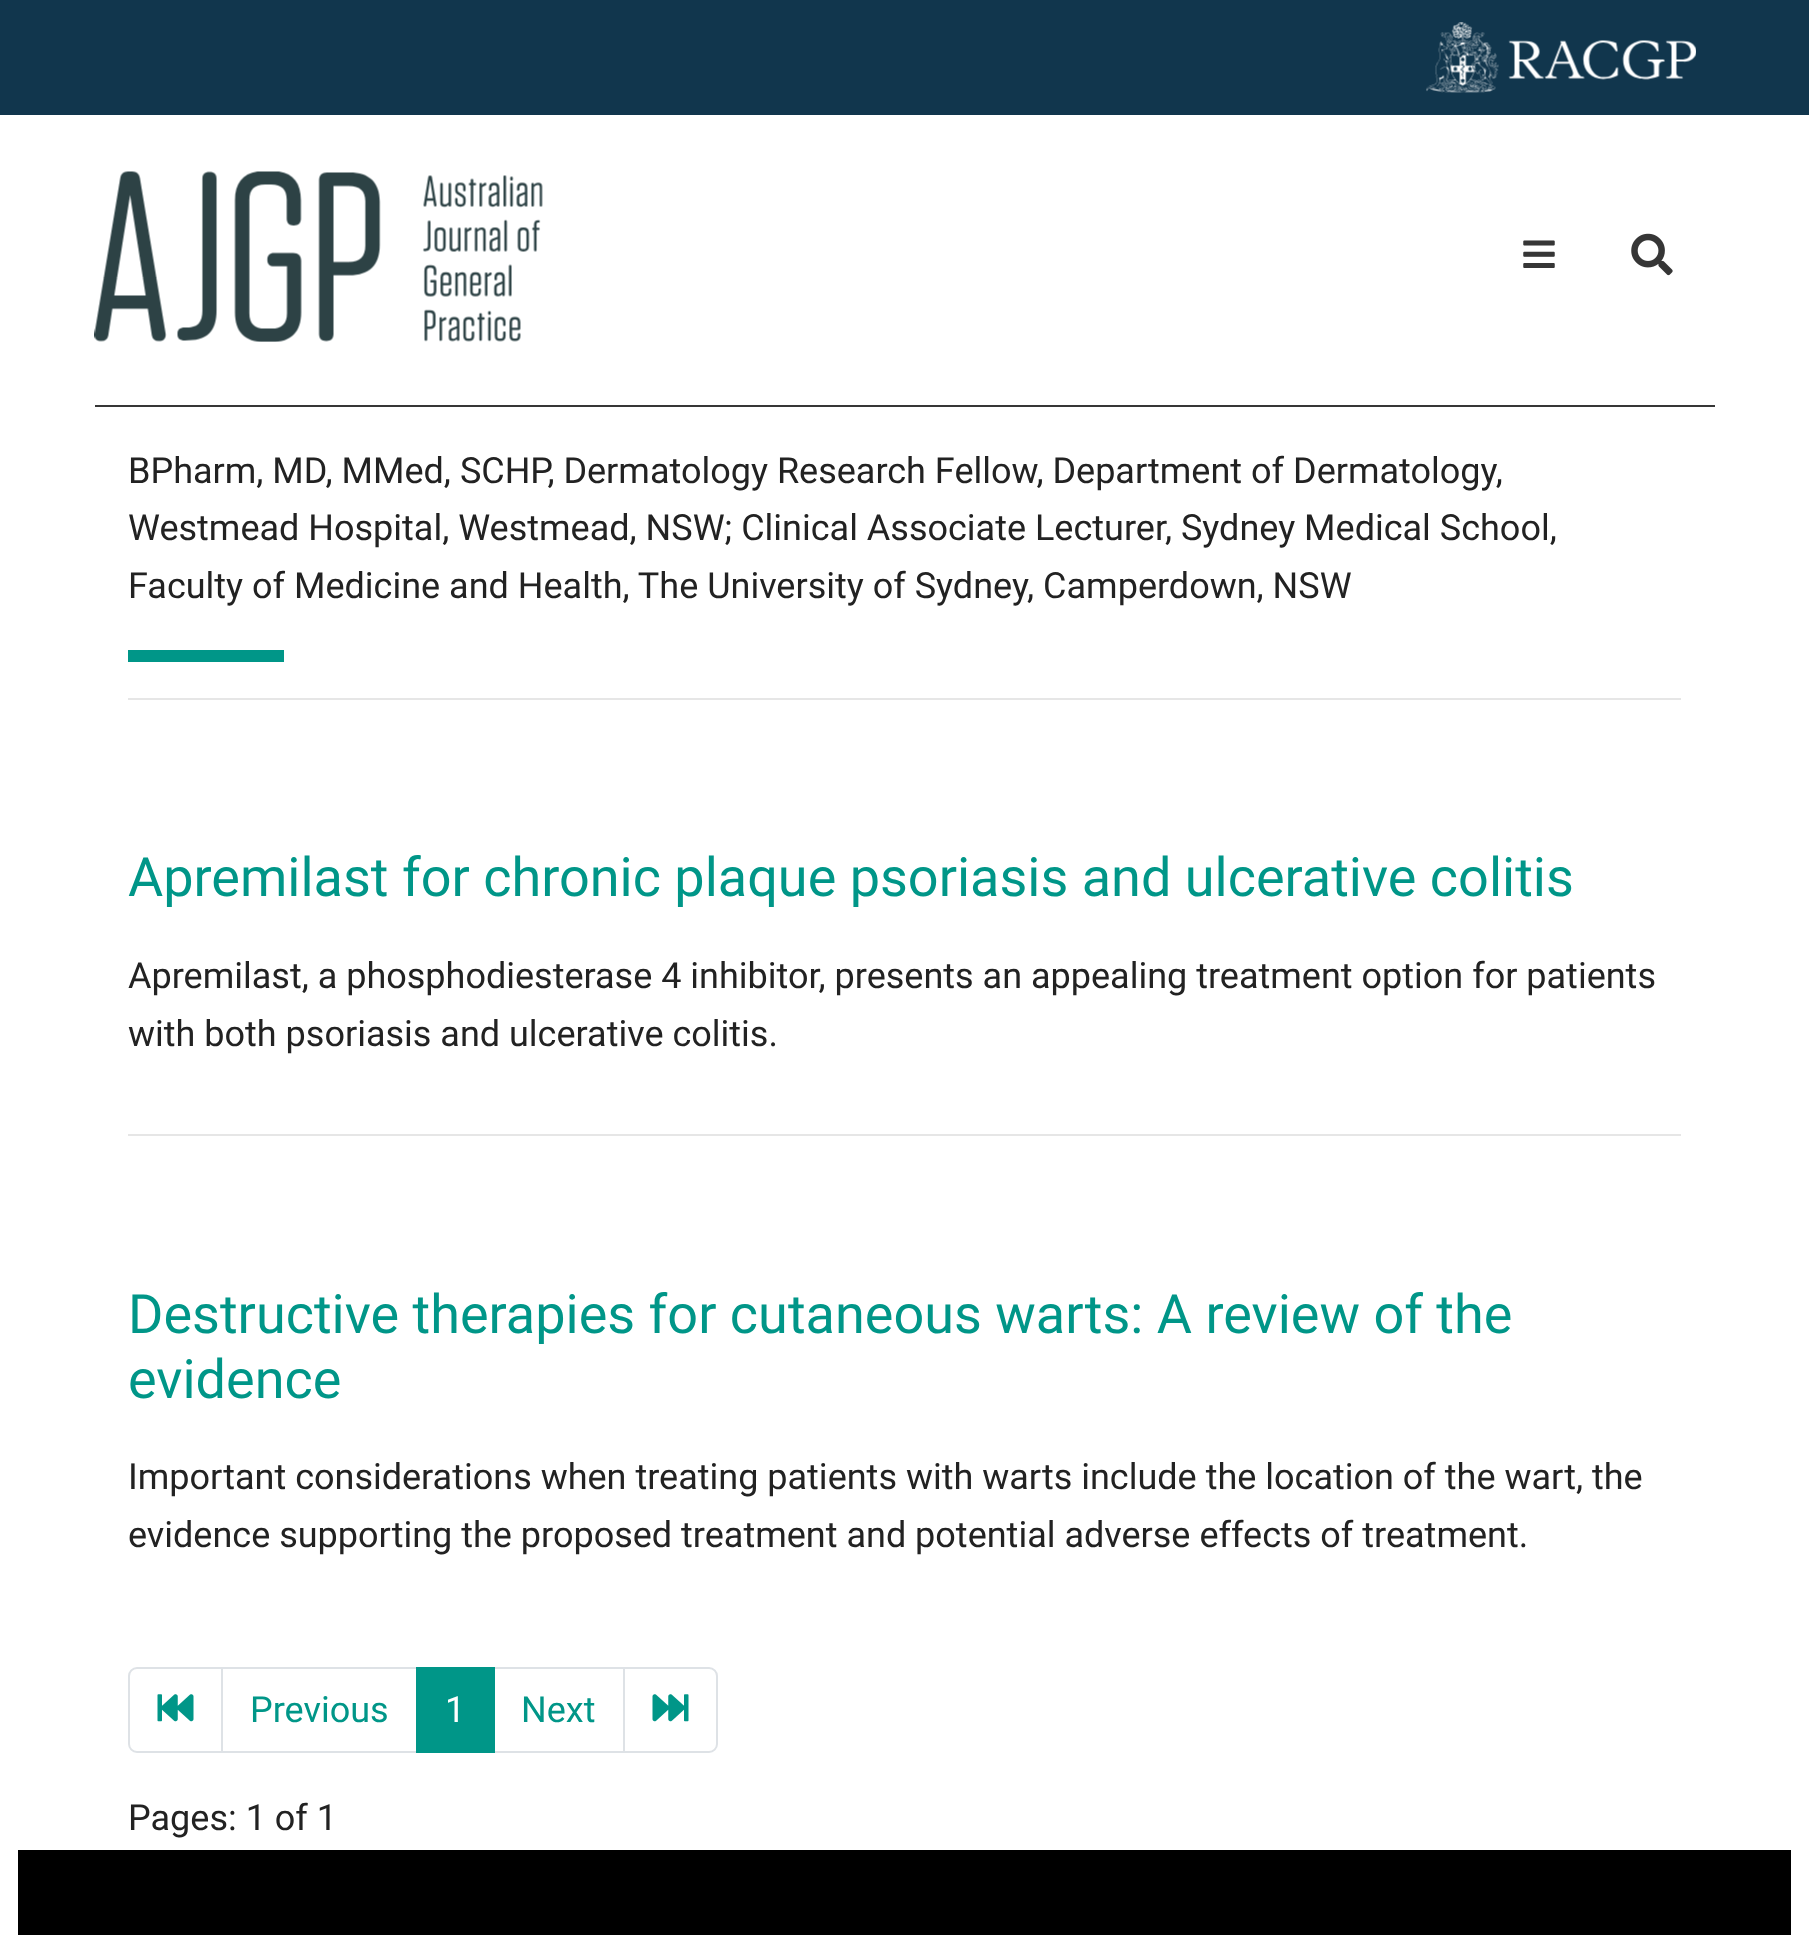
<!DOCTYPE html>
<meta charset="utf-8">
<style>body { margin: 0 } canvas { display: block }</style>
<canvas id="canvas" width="1809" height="1935"></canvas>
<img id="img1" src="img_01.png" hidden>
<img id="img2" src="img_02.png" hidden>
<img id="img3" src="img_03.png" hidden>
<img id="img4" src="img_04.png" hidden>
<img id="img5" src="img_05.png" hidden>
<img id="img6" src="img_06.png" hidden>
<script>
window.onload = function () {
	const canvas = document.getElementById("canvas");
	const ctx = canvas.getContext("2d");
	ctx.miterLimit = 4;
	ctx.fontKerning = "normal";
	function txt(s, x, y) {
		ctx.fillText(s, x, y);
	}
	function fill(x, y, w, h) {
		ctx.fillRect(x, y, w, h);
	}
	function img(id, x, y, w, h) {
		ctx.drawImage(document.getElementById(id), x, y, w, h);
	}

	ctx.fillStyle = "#FFFFFF";
	fill(0, 0, 1809, 1935);
	ctx.fillStyle = "#11364D";
	fill(0, 0, 1809, 115);
	img("img1", 1426, 22, 270, 71);
	ctx.fillStyle = "#363636";
	fill(95, 405, 1620, 2);
	img("img2", 94, 171, 449, 171);
	img("img3", 1523, 240, 32, 28);
	img("img4", 1631, 233, 42, 43);
	ctx.fillStyle = "#009688";
	fill(128, 650, 156, 12);
	ctx.fillStyle = "#E6E6E6";
	fill(128, 698, 1553, 2);
	fill(128, 1134, 1553, 2);
	ctx.beginPath();
	ctx.roundRect(129, 1668, 93, 84, [8, 0, 0, 8]);
	ctx.strokeStyle = "#DEE2E6";
	ctx.lineWidth = 2;
	ctx.stroke();
	img("img5", 157, 1694, 37, 28);
	ctx.strokeRect(222, 1668, 196, 84);
	ctx.strokeRect(494, 1668, 131, 84);
	ctx.fillStyle = "#009688";
	fill(416, 1667, 79, 86);
	ctx.fillStyle = "#FFFFFF";
	ctx.beginPath();
	ctx.roundRect(624, 1668, 93, 84, [0, 8, 8, 0]);
	ctx.fill();
	ctx.stroke();
	img("img6", 652, 1694, 37, 28);
	ctx.fillStyle = "#000000";
	fill(18, 1850, 1773, 85);
	ctx.font = "36px Roboto";
	ctx.fillStyle = "#222222";
	txt("BPharm, MD, MMed, SCHP, Dermatology Research Fellow, Department of Dermatology,", 128, 483);
	txt("Westmead Hospital, Westmead, NSW; Clinical Associate Lecturer, Sydney Medical School,", 128, 540);
	txt("Faculty of Medicine and Health, The University of Sydney, Camperdown, NSW", 128, 598);
	ctx.font = "54px Roboto";
	ctx.fillStyle = "#009688";
	txt("Apremilast for chronic plaque psoriasis and ulcerative colitis", 128, 896);
	ctx.font = "36px Roboto";
	ctx.fillStyle = "#222222";
	txt("Apremilast, a phosphodiesterase 4 inhibitor, presents an appealing treatment option for patients", 128, 988);
	txt("with both psoriasis and ulcerative colitis.", 128, 1046);
	ctx.font = "54px Roboto";
	ctx.fillStyle = "#009688";
	txt("Destructive therapies for cutaneous warts: A review of the", 128, 1333);
	txt("evidence", 128, 1398);
	ctx.font = "36px Roboto";
	ctx.fillStyle = "#222222";
	txt("Important considerations when treating patients with warts include the location of the wart, the", 128, 1489);
	txt("evidence supporting the proposed treatment and potential adverse effects of treatment.", 128, 1547);
	ctx.fillStyle = "#009688";
	txt("Previous", 250, 1722);
	ctx.fillStyle = "#FFFFFF";
	txt("1", 445, 1722);
	ctx.fillStyle = "#009688";
	txt("Next", 521, 1722);
	ctx.fillStyle = "#222222";
	txt("Pages: 1 of 1", 128, 1830);
};
</script>
